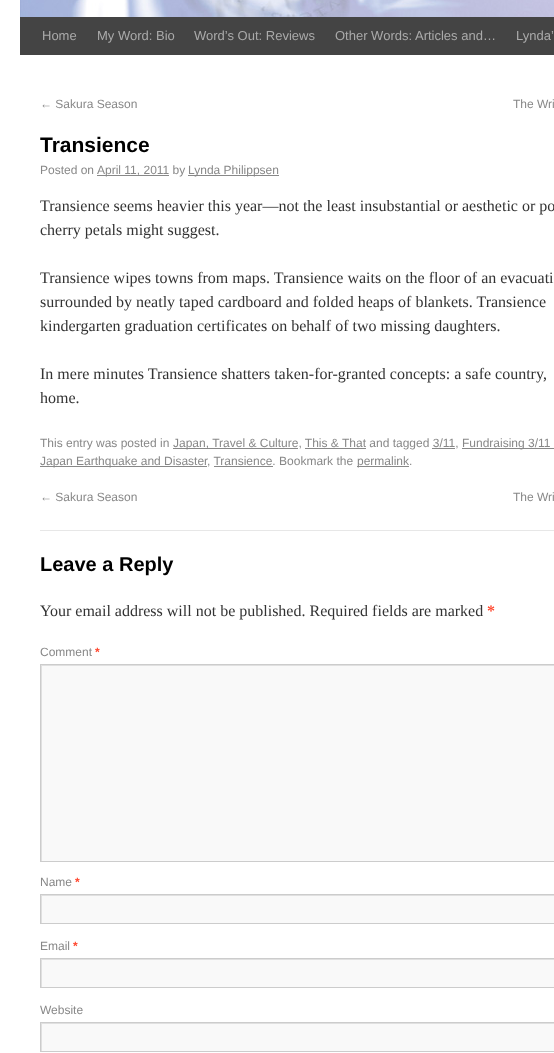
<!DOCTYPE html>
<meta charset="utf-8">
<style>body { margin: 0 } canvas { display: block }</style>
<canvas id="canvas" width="554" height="1053"></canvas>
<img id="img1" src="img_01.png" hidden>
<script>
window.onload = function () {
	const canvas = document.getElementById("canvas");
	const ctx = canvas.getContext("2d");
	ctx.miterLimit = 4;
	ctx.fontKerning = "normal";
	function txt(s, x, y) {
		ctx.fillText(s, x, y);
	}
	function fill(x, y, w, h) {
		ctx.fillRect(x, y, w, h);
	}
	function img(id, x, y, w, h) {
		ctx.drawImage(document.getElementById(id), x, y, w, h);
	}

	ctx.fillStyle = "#FFFFFF";
	fill(0, 0, 554, 1053);
	img("img1", 20, 0, 534, 17);
	ctx.fillStyle = "#444444";
	fill(20, 17, 534, 38);
	ctx.fillStyle = "#888888";
	fill(97, 175, 72, 1);
	fill(188, 175, 91, 1);
	fill(173, 448, 125, 1);
	fill(462, 448, 92, 1);
	fill(305, 448, 61, 1);
	fill(432, 448, 23, 1);
	fill(40, 466, 167, 1);
	fill(357, 466, 52, 1);
	fill(214, 466, 59, 1);
	ctx.fillStyle = "#E7E7E7";
	fill(40, 530, 514, 1);
	ctx.fillStyle = "#F9F9F9";
	fill(42, 666, 512, 195);
	ctx.save();
	ctx.beginPath();
	ctx.rect(41, 665, 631, 196);
	ctx.clip();
	ctx.fillStyle = "#E0E0E0";
	ctx.beginPath();
	ctx.moveTo(-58, 566);
	ctx.lineTo(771, 566);
	ctx.lineTo(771, 960);
	ctx.lineTo(-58, 960);
	ctx.closePath();
	ctx.moveTo(42, 666);
	ctx.lineTo(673, 666);
	ctx.lineTo(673, 862);
	ctx.lineTo(42, 862);
	ctx.closePath();
	ctx.fill("evenodd");
	ctx.restore();
	ctx.strokeStyle = "#CCCCCC";
	ctx.strokeRect(40.5, 664.5, 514, 197);
	fill(42, 896, 512, 27);
	ctx.save();
	ctx.beginPath();
	ctx.rect(41, 895, 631, 28);
	ctx.clip();
	ctx.fillStyle = "#E0E0E0";
	ctx.beginPath();
	ctx.moveTo(-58, 796);
	ctx.lineTo(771, 796);
	ctx.lineTo(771, 1022);
	ctx.lineTo(-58, 1022);
	ctx.closePath();
	ctx.moveTo(42, 896);
	ctx.lineTo(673, 896);
	ctx.lineTo(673, 924);
	ctx.lineTo(42, 924);
	ctx.closePath();
	ctx.fill("evenodd");
	ctx.restore();
	ctx.strokeRect(40.5, 894.5, 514, 29);
	fill(42, 960, 512, 27);
	ctx.save();
	ctx.beginPath();
	ctx.rect(41, 959, 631, 28);
	ctx.clip();
	ctx.fillStyle = "#E0E0E0";
	ctx.beginPath();
	ctx.moveTo(-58, 860);
	ctx.lineTo(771, 860);
	ctx.lineTo(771, 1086);
	ctx.lineTo(-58, 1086);
	ctx.closePath();
	ctx.moveTo(42, 960);
	ctx.lineTo(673, 960);
	ctx.lineTo(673, 988);
	ctx.lineTo(42, 988);
	ctx.closePath();
	ctx.fill("evenodd");
	ctx.restore();
	ctx.strokeRect(40.5, 958.5, 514, 29);
	fill(42, 1024, 512, 27);
	ctx.save();
	ctx.beginPath();
	ctx.rect(41, 1023, 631, 28);
	ctx.clip();
	ctx.fillStyle = "#E0E0E0";
	ctx.beginPath();
	ctx.moveTo(-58, 924);
	ctx.lineTo(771, 924);
	ctx.lineTo(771, 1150);
	ctx.lineTo(-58, 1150);
	ctx.closePath();
	ctx.moveTo(42, 1024);
	ctx.lineTo(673, 1024);
	ctx.lineTo(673, 1052);
	ctx.lineTo(42, 1052);
	ctx.closePath();
	ctx.fill("evenodd");
	ctx.restore();
	ctx.strokeRect(40.5, 1022.5, 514, 29);
	ctx.font = "13px Liberation Sans";
	ctx.fillStyle = "#AAAAAA";
	txt("Home", 42, 40);
	txt("My Word: Bio", 97, 40);
	txt("Word’s Out: Reviews", 194, 40);
	txt("Other Words: Articles and…", 335, 40);
	txt("Lynda’", 516, 40);
	ctx.font = "12px Liberation Sans";
	ctx.fillStyle = "#888888";
	txt("← Sakura Season", 40, 108);
	txt("The Wri", 513, 108);
	ctx.font = "bold 21px Liberation Sans";
	ctx.fillStyle = "#000000";
	txt("Transience", 40, 152);
	ctx.font = "12px Liberation Sans";
	ctx.fillStyle = "#888888";
	txt("Posted on", 40, 174);
	txt("April 11, 2011 by", 97, 174);
	txt("Lynda Philippsen", 188, 174);
	ctx.font = "16px Liberation Serif";
	ctx.fillStyle = "#333333";
	txt("Transience seems heavier this year—not the least insubstantial or aesthetic or po", 40, 211);
	txt("cherry petals might suggest.", 40, 235);
	txt("Transience wipes towns from maps. Transience waits on the floor of an evacuati", 40, 283);
	txt("surrounded by neatly taped cardboard and folded heaps of blankets. Transience", 40, 307);
	txt("kindergarten graduation certificates on behalf of two missing daughters.", 40, 331);
	txt("In mere minutes Transience shatters taken-for-granted concepts: a safe country,", 40, 379);
	txt("home.", 40, 403);
	ctx.font = "12px Liberation Sans";
	ctx.fillStyle = "#888888";
	txt("This entry was posted in", 40, 447);
	txt("Japan, Travel & Culture, This & That and tagged 3/11,", 173, 447);
	txt("Fundraising 3/11", 462, 447);
	txt("Japan Earthquake and Disaster", 40, 465);
	txt(", Transience. Bookmark the", 207, 465);
	txt("permalink.", 357, 465);
	txt("← Sakura Season", 40, 501);
	txt("The Wri", 513, 501);
	ctx.font = "bold 20px Liberation Sans";
	ctx.fillStyle = "#000000";
	txt("Leave a Reply", 40, 571);
	ctx.font = "16px Liberation Serif";
	ctx.fillStyle = "#333333";
	txt("Your email address will not be published. Required fields are marked", 40, 616);
	ctx.font = "bold 16px Liberation Serif";
	ctx.fillStyle = "#FF4B33";
	txt("*", 487, 616);
	ctx.font = "12px Liberation Sans";
	ctx.fillStyle = "#888888";
	txt("Comment", 40, 656);
	ctx.font = "bold 12px Liberation Sans";
	ctx.fillStyle = "#FF4B33";
	txt("*", 95, 656);
	ctx.font = "12px Liberation Sans";
	ctx.fillStyle = "#888888";
	txt("Name", 40, 886);
	ctx.font = "bold 12px Liberation Sans";
	ctx.fillStyle = "#FF4B33";
	txt("*", 75, 886);
	ctx.font = "12px Liberation Sans";
	ctx.fillStyle = "#888888";
	txt("Email", 40, 950);
	ctx.font = "bold 12px Liberation Sans";
	ctx.fillStyle = "#FF4B33";
	txt("*", 73, 950);
	ctx.font = "12px Liberation Sans";
	ctx.fillStyle = "#888888";
	txt("Website", 40, 1014);
};
</script>
